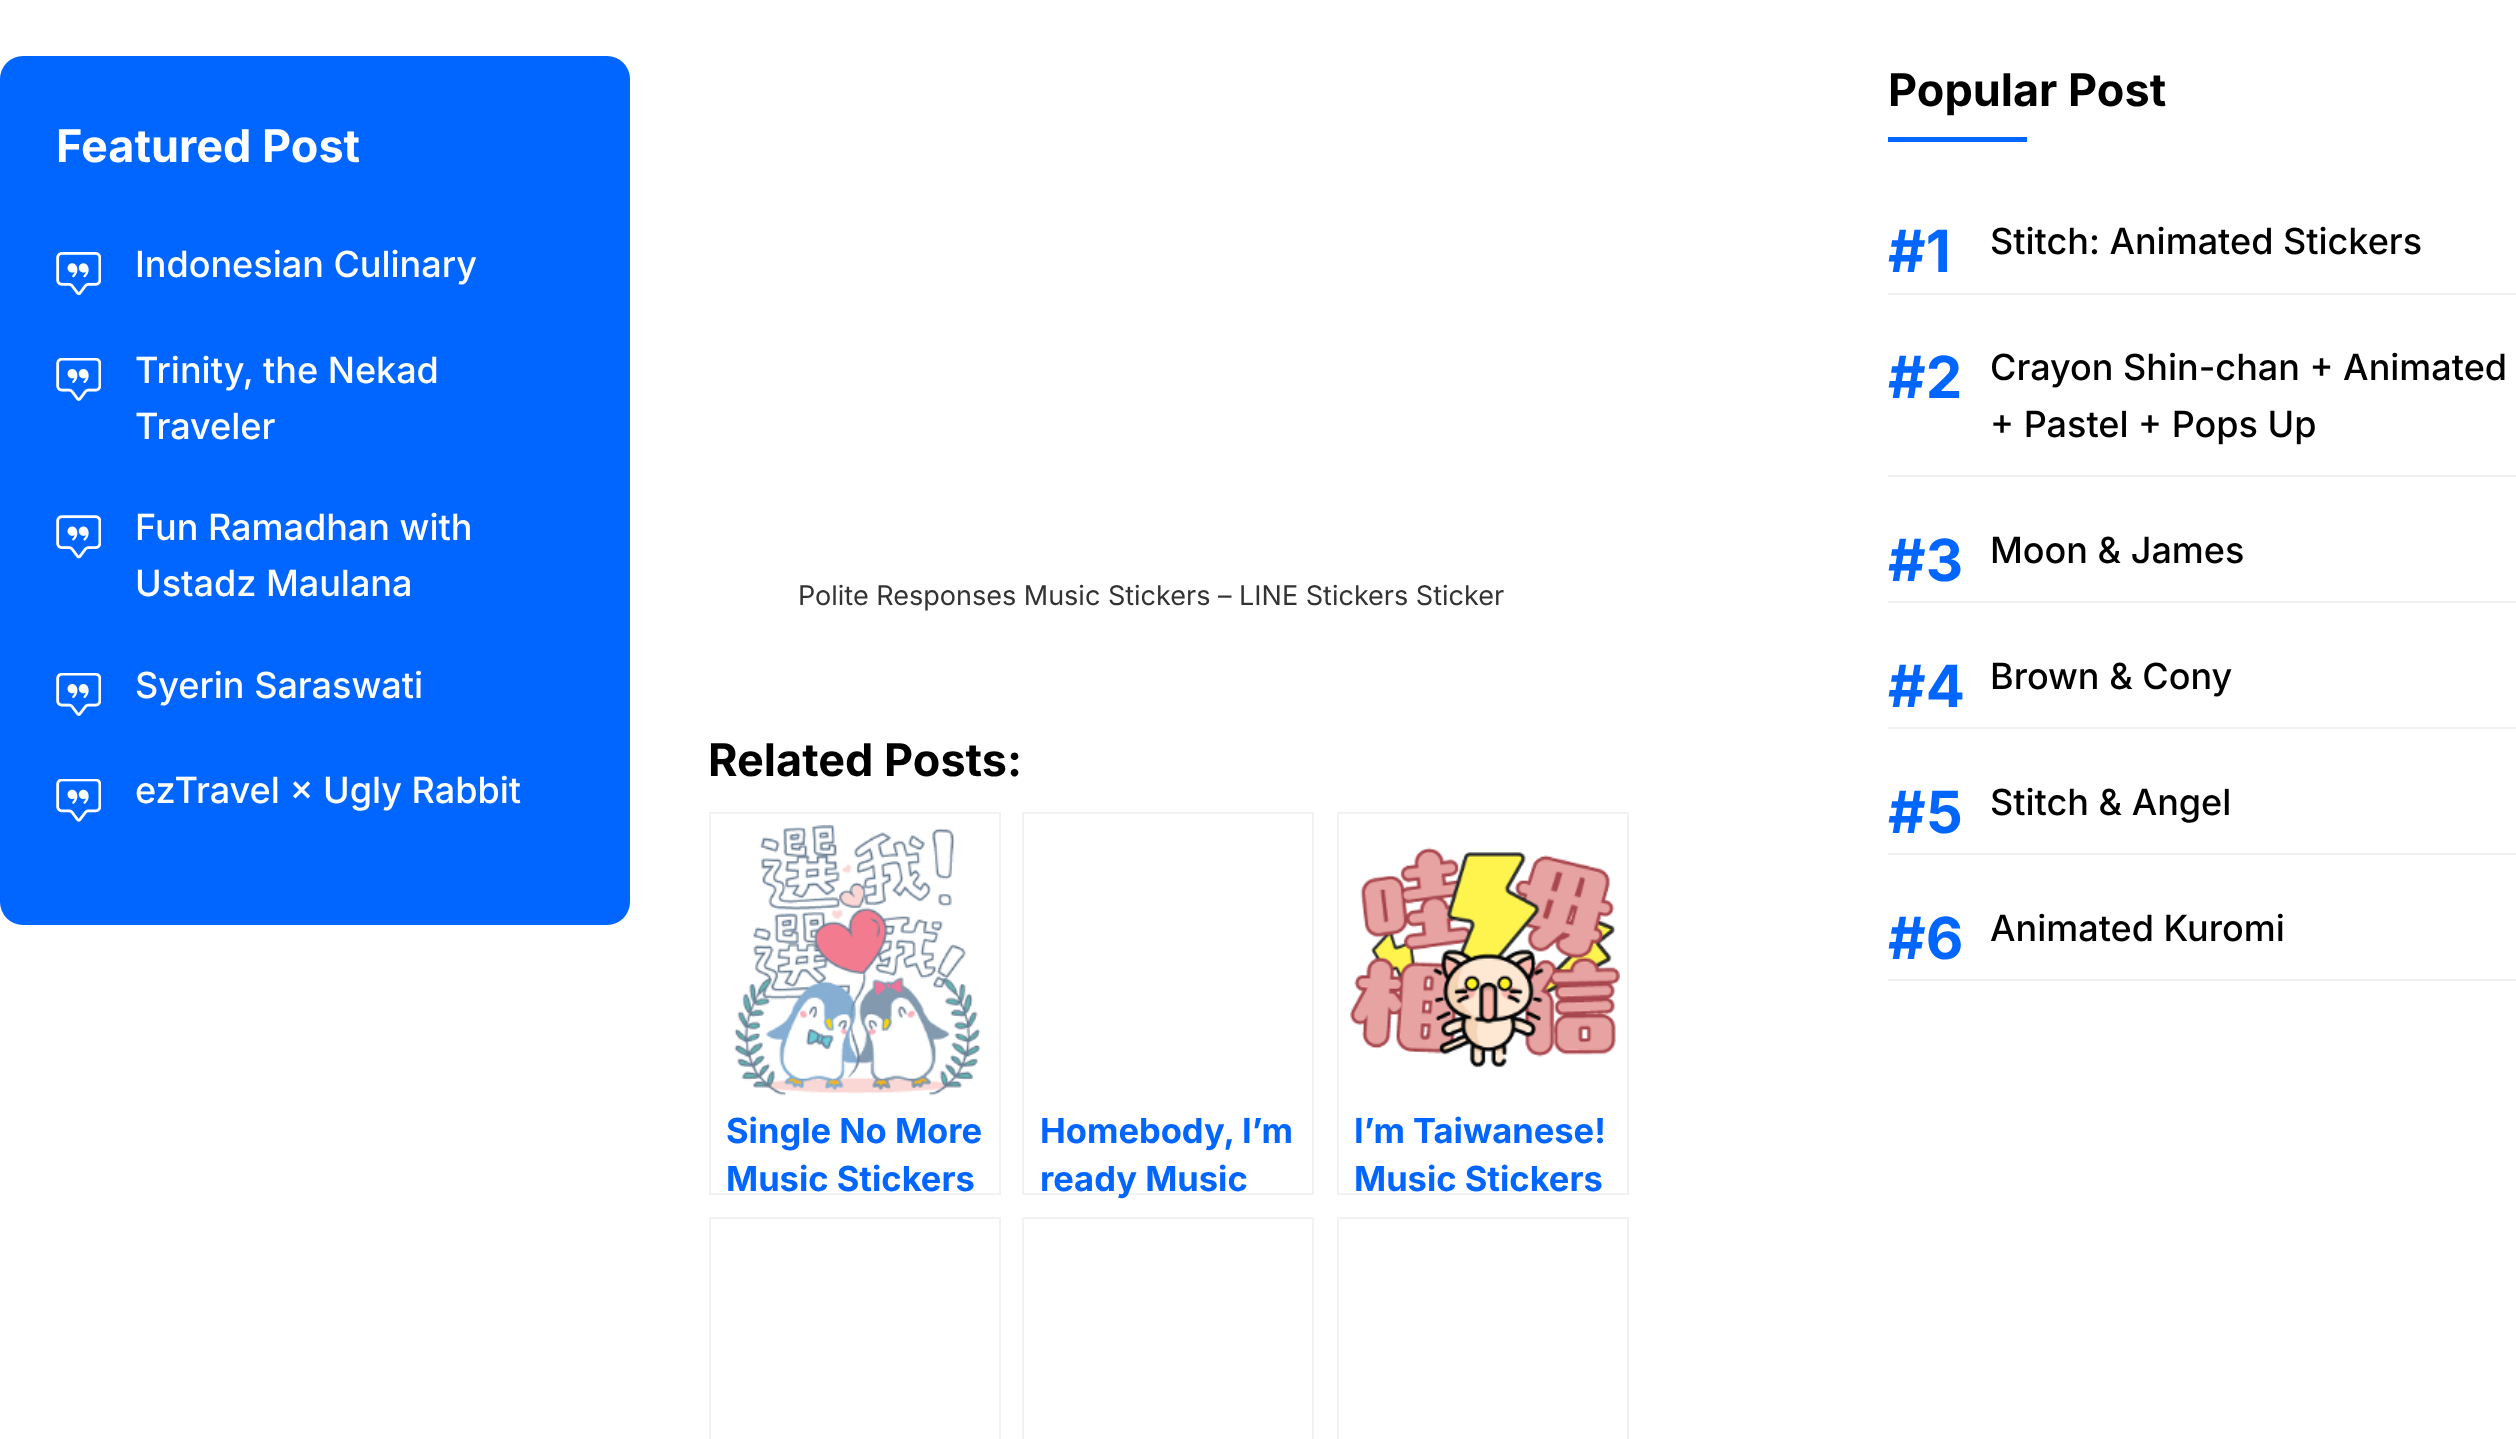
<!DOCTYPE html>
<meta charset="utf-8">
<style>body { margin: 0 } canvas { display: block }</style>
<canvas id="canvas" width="2516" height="1439"></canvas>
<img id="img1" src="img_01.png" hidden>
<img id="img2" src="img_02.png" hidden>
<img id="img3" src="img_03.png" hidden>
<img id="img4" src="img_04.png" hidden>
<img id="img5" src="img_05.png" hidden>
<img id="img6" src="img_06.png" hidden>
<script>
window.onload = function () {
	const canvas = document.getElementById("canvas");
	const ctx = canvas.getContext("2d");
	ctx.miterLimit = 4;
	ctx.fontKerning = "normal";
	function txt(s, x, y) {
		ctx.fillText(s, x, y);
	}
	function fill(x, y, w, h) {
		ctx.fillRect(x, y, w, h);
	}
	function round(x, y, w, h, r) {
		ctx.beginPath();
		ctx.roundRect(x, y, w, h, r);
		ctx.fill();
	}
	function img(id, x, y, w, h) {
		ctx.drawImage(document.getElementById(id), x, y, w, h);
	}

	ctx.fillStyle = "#FFFFFF";
	fill(0, 0, 2516, 1439);
	ctx.fillStyle = "#0166FF";
	round(0, 56, 630, 869, 23);
	img("img1", 56, 252, 45, 44);
	img("img2", 56, 358, 45, 43);
	img("img3", 56, 515, 45, 44);
	img("img2", 56, 673, 45, 43);
	img("img4", 56, 779, 45, 43);
	fill(1888, 137, 139, 5);
	ctx.fillStyle = "#F1F1F1";
	fill(1888, 293, 628, 2);
	fill(1888, 475, 628, 2);
	fill(1888, 601, 628, 2);
	fill(1888, 727, 628, 2);
	fill(1888, 853, 628, 2);
	fill(1888, 979, 628, 2);
	ctx.strokeStyle = "#F2F2F2";
	ctx.lineWidth = 2;
	ctx.strokeRect(710, 813, 290, 381);
	img("img5", 734, 825, 247, 271);
	ctx.strokeRect(1023, 813, 290, 381);
	ctx.strokeRect(1338, 813, 290, 381);
	img("img6", 1350, 847, 270, 221);
	ctx.strokeRect(710, 1218, 290, 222);
	ctx.strokeRect(1023, 1218, 290, 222);
	ctx.strokeRect(1338, 1218, 290, 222);
	ctx.font = "bold 45px Inter";
	ctx.fillStyle = "#FFFFFF";
	txt("Featured Post", 56, 162);
	ctx.font = "500 36px Inter";
	txt("Indonesian Culinary", 135, 277);
	txt("Trinity, the Nekad", 135, 383);
	txt("Traveler", 135, 439);
	txt("Fun Ramadhan with", 135, 540);
	txt("Ustadz Maulana", 135, 596);
	txt("Syerin Saraswati", 135, 698);
	txt("ezTravel × Ugly Rabbit", 135, 803);
	ctx.font = "bold 45px Inter";
	ctx.fillStyle = "#000000";
	txt("Popular Post", 1888, 106);
	ctx.font = "bold 58px Inter";
	ctx.fillStyle = "#0166FF";
	txt("#1", 1888, 272);
	ctx.font = "500 36px Inter";
	ctx.fillStyle = "#000000";
	txt("Stitch: Animated Stickers", 1990, 254);
	ctx.font = "bold 58px Inter";
	ctx.fillStyle = "#0166FF";
	txt("#2", 1888, 398);
	ctx.font = "500 36px Inter";
	ctx.fillStyle = "#000000";
	txt("Crayon Shin-chan + Animated", 1990, 380);
	txt("+ Pastel + Pops Up", 1990, 437);
	ctx.font = "bold 58px Inter";
	ctx.fillStyle = "#0166FF";
	txt("#3", 1888, 581);
	ctx.font = "500 36px Inter";
	ctx.fillStyle = "#000000";
	txt("Moon & James", 1990, 563);
	ctx.font = "bold 58px Inter";
	ctx.fillStyle = "#0166FF";
	txt("#4", 1888, 707);
	ctx.font = "500 36px Inter";
	ctx.fillStyle = "#000000";
	txt("Brown & Cony", 1990, 689);
	ctx.font = "bold 58px Inter";
	ctx.fillStyle = "#0166FF";
	txt("#5", 1888, 833);
	ctx.font = "500 36px Inter";
	ctx.fillStyle = "#000000";
	txt("Stitch & Angel", 1990, 815);
	ctx.font = "bold 58px Inter";
	ctx.fillStyle = "#0166FF";
	txt("#6", 1888, 959);
	ctx.font = "500 36px Inter";
	ctx.fillStyle = "#000000";
	txt("Animated Kuromi", 1990, 941);
	ctx.font = "27px Inter";
	ctx.fillStyle = "#333333";
	txt("Polite Responses Music Stickers – LINE Stickers Sticker", 798, 605);
	ctx.font = "bold 45px Inter";
	ctx.fillStyle = "#000000";
	txt("Related Posts:", 708, 776);
	ctx.font = "bold 34.5px Inter";
	ctx.fillStyle = "#0166FF";
	txt("Single No More", 726, 1143);
	txt("Music Stickers", 726, 1191);
	txt("Homebody, I’m", 1040, 1143);
	txt("ready Music", 1040, 1191);
	txt("I’m Taiwanese!", 1354, 1143);
	txt("Music Stickers", 1354, 1191);
};
</script>
